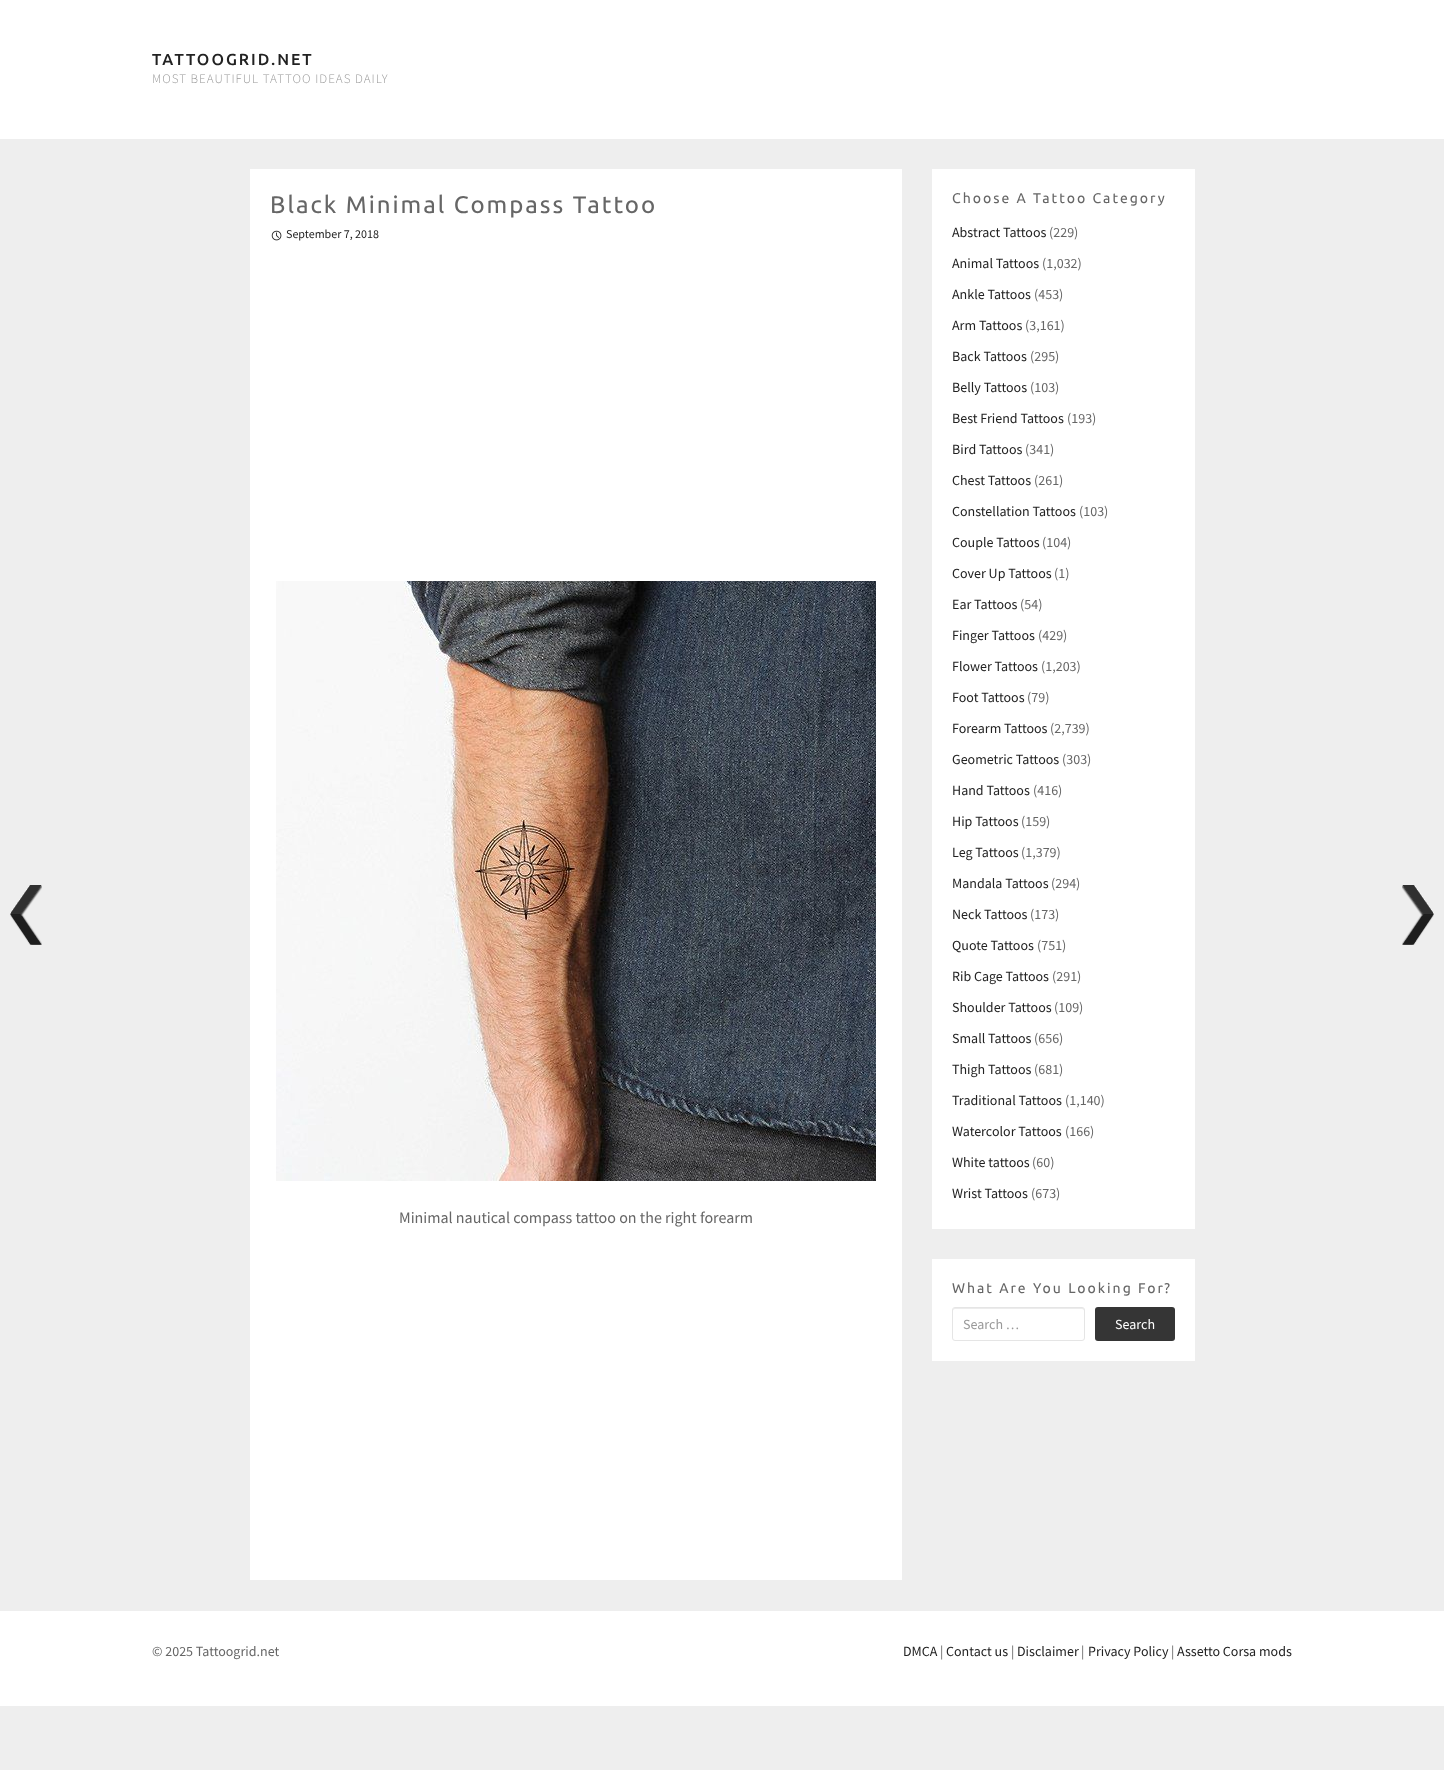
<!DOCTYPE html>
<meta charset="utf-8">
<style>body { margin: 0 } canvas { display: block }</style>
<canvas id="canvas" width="1444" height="1770"></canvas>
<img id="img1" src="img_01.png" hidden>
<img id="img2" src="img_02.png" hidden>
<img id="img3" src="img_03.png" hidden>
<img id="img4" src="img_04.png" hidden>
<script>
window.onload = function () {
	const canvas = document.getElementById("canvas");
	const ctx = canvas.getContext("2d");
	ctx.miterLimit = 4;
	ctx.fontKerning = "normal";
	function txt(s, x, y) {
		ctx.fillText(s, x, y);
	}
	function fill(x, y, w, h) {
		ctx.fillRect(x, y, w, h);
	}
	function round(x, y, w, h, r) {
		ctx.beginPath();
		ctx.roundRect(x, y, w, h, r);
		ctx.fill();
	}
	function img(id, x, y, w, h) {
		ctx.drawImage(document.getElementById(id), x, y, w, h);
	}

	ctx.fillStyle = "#EEEEEE";
	fill(0, 0, 1444, 1770);
	ctx.fillStyle = "#FFFFFF";
	fill(0, 0, 1444, 139);
	img("img1", 10, 885, 32, 60);
	fill(250, 169, 652, 1411);
	img("img2", 271, 230, 11, 11);
	img("img3", 276, 581, 600, 600);
	fill(932, 169, 263, 1060);
	fill(932, 1259, 263, 102);
	ctx.fillStyle = "#ECECEC";
	ctx.beginPath();
	ctx.moveTo(955, 1309);
	ctx.lineTo(1082, 1309);
	ctx.bezierCurveTo(1083, 1309, 1084, 1310, 1084, 1311);
	ctx.bezierCurveTo(1084, 1310, 1084, 1308, 1082, 1308);
	ctx.lineTo(955, 1308);
	ctx.bezierCurveTo(953, 1308, 953, 1310, 953, 1311);
	ctx.bezierCurveTo(953, 1310, 954, 1309, 955, 1309);
	ctx.closePath();
	ctx.fill();
	ctx.beginPath();
	ctx.roundRect(952.5, 1307.5, 132, 33, 2.5);
	ctx.strokeStyle = "#E5E5E5";
	ctx.stroke();
	ctx.fillStyle = "#353535";
	round(1095, 1307, 80, 34, 3);
	img("img4", 1402, 885, 32, 60);
	ctx.fillStyle = "#FFFFFF";
	fill(0, 1611, 1444, 95);
	ctx.letterSpacing = "2px";
	ctx.font = "500 16px Ubuntu";
	ctx.fillStyle = "#222222";
	txt("TATTOOGRID.NET", 152, 65);
	ctx.letterSpacing = "1px";
	ctx.font = "300 13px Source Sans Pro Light";
	ctx.fillStyle = "#999999";
	txt("MOST BEAUTIFUL TATTOO IDEAS DAILY", 152, 83);
	ctx.letterSpacing = "2px";
	ctx.font = "24px Ubuntu";
	ctx.fillStyle = "#666666";
	txt("Black Minimal Compass Tattoo", 270, 213);
	ctx.letterSpacing = "0px";
	ctx.font = "12px Source Sans Pro";
	ctx.fillStyle = "#222222";
	txt("September 7, 2018", 286, 238);
	ctx.font = "16px Source Sans Pro";
	ctx.fillStyle = "#666666";
	txt("Minimal nautical compass tattoo on the right forearm", 399, 1223);
	ctx.letterSpacing = "2px";
	ctx.font = "14px Ubuntu";
	txt("Choose A Tattoo Category", 952, 203);
	ctx.letterSpacing = "0px";
	ctx.font = "14px Source Sans Pro";
	ctx.fillStyle = "#222222";
	txt("Abstract Tattoos", 952, 237);
	ctx.fillStyle = "#666666";
	txt("(229)", 1049, 237);
	ctx.fillStyle = "#222222";
	txt("Animal Tattoos", 952, 268);
	ctx.fillStyle = "#666666";
	txt("(1,032)", 1042, 268);
	ctx.fillStyle = "#222222";
	txt("Ankle Tattoos", 952, 299);
	ctx.fillStyle = "#666666";
	txt("(453)", 1034, 299);
	ctx.fillStyle = "#222222";
	txt("Arm Tattoos", 952, 330);
	ctx.fillStyle = "#666666";
	txt("(3,161)", 1025, 330);
	ctx.fillStyle = "#222222";
	txt("Back Tattoos", 952, 361);
	ctx.fillStyle = "#666666";
	txt("(295)", 1030, 361);
	ctx.fillStyle = "#222222";
	txt("Belly Tattoos", 952, 392);
	ctx.fillStyle = "#666666";
	txt("(103)", 1030, 392);
	ctx.fillStyle = "#222222";
	txt("Best Friend Tattoos", 952, 423);
	ctx.fillStyle = "#666666";
	txt("(193)", 1067, 423);
	ctx.fillStyle = "#222222";
	txt("Bird Tattoos", 952, 454);
	ctx.fillStyle = "#666666";
	txt("(341)", 1025, 454);
	ctx.fillStyle = "#222222";
	txt("Chest Tattoos", 952, 485);
	ctx.fillStyle = "#666666";
	txt("(261)", 1034, 485);
	ctx.fillStyle = "#222222";
	txt("Constellation Tattoos", 952, 516);
	ctx.fillStyle = "#666666";
	txt("(103)", 1079, 516);
	ctx.fillStyle = "#222222";
	txt("Couple Tattoos", 952, 547);
	ctx.fillStyle = "#666666";
	txt("(104)", 1042, 547);
	ctx.fillStyle = "#222222";
	txt("Cover Up Tattoos", 952, 578);
	ctx.fillStyle = "#666666";
	txt("(1)", 1054, 578);
	ctx.fillStyle = "#222222";
	txt("Ear Tattoos", 952, 609);
	ctx.fillStyle = "#666666";
	txt("(54)", 1020, 609);
	ctx.fillStyle = "#222222";
	txt("Finger Tattoos", 952, 640);
	ctx.fillStyle = "#666666";
	txt("(429)", 1038, 640);
	ctx.fillStyle = "#222222";
	txt("Flower Tattoos", 952, 671);
	ctx.fillStyle = "#666666";
	txt("(1,203)", 1041, 671);
	ctx.fillStyle = "#222222";
	txt("Foot Tattoos", 952, 702);
	ctx.fillStyle = "#666666";
	txt("(79)", 1027, 702);
	ctx.fillStyle = "#222222";
	txt("Forearm Tattoos", 952, 733);
	ctx.fillStyle = "#666666";
	txt("(2,739)", 1050, 733);
	ctx.fillStyle = "#222222";
	txt("Geometric Tattoos", 952, 764);
	ctx.fillStyle = "#666666";
	txt("(303)", 1062, 764);
	ctx.fillStyle = "#222222";
	txt("Hand Tattoos", 952, 795);
	ctx.fillStyle = "#666666";
	txt("(416)", 1033, 795);
	ctx.fillStyle = "#222222";
	txt("Hip Tattoos", 952, 826);
	ctx.fillStyle = "#666666";
	txt("(159)", 1021, 826);
	ctx.fillStyle = "#222222";
	txt("Leg Tattoos", 952, 857);
	ctx.fillStyle = "#666666";
	txt("(1,379)", 1021, 857);
	ctx.fillStyle = "#222222";
	txt("Mandala Tattoos", 952, 888);
	ctx.fillStyle = "#666666";
	txt("(294)", 1051, 888);
	ctx.fillStyle = "#222222";
	txt("Neck Tattoos", 952, 919);
	ctx.fillStyle = "#666666";
	txt("(173)", 1030, 919);
	ctx.fillStyle = "#222222";
	txt("Quote Tattoos", 952, 950);
	ctx.fillStyle = "#666666";
	txt("(751)", 1037, 950);
	ctx.fillStyle = "#222222";
	txt("Rib Cage Tattoos", 952, 981);
	ctx.fillStyle = "#666666";
	txt("(291)", 1052, 981);
	ctx.fillStyle = "#222222";
	txt("Shoulder Tattoos", 952, 1012);
	ctx.fillStyle = "#666666";
	txt("(109)", 1054, 1012);
	ctx.fillStyle = "#222222";
	txt("Small Tattoos", 952, 1043);
	ctx.fillStyle = "#666666";
	txt("(656)", 1034, 1043);
	ctx.fillStyle = "#222222";
	txt("Thigh Tattoos", 952, 1074);
	ctx.fillStyle = "#666666";
	txt("(681)", 1034, 1074);
	ctx.fillStyle = "#222222";
	txt("Traditional Tattoos", 952, 1105);
	ctx.fillStyle = "#666666";
	txt("(1,140)", 1065, 1105);
	ctx.fillStyle = "#222222";
	txt("Watercolor Tattoos", 952, 1136);
	ctx.fillStyle = "#666666";
	txt("(166)", 1065, 1136);
	ctx.fillStyle = "#222222";
	txt("White tattoos", 952, 1167);
	ctx.fillStyle = "#666666";
	txt("(60)", 1032, 1167);
	ctx.fillStyle = "#222222";
	txt("Wrist Tattoos", 952, 1198);
	ctx.fillStyle = "#666666";
	txt("(673)", 1031, 1198);
	ctx.letterSpacing = "2px";
	ctx.font = "14px Ubuntu";
	txt("What Are You Looking For?", 952, 1293);
	ctx.letterSpacing = "0px";
	ctx.font = "14px Source Sans Pro";
	ctx.fillStyle = "#999999";
	txt("Search …", 963, 1329);
	ctx.fillStyle = "#FFFFFF";
	txt("Search", 1115, 1329);
	ctx.fillStyle = "#666666";
	txt("© 2025 Tattoogrid.net", 152, 1656);
	ctx.fillStyle = "#222222";
	txt("DMCA", 903, 1656);
	ctx.fillStyle = "#666666";
	txt("|", 940, 1656);
	ctx.fillStyle = "#222222";
	txt("Contact us", 946, 1656);
	ctx.fillStyle = "#666666";
	txt("|", 1011, 1656);
	ctx.fillStyle = "#222222";
	txt("Disclaimer", 1017, 1656);
	ctx.fillStyle = "#666666";
	txt("|", 1081, 1656);
	ctx.fillStyle = "#222222";
	txt("Privacy Policy", 1088, 1656);
	ctx.fillStyle = "#666666";
	txt("|", 1171, 1656);
	ctx.fillStyle = "#222222";
	txt("Assetto Corsa mods", 1177, 1656);
};
</script>
